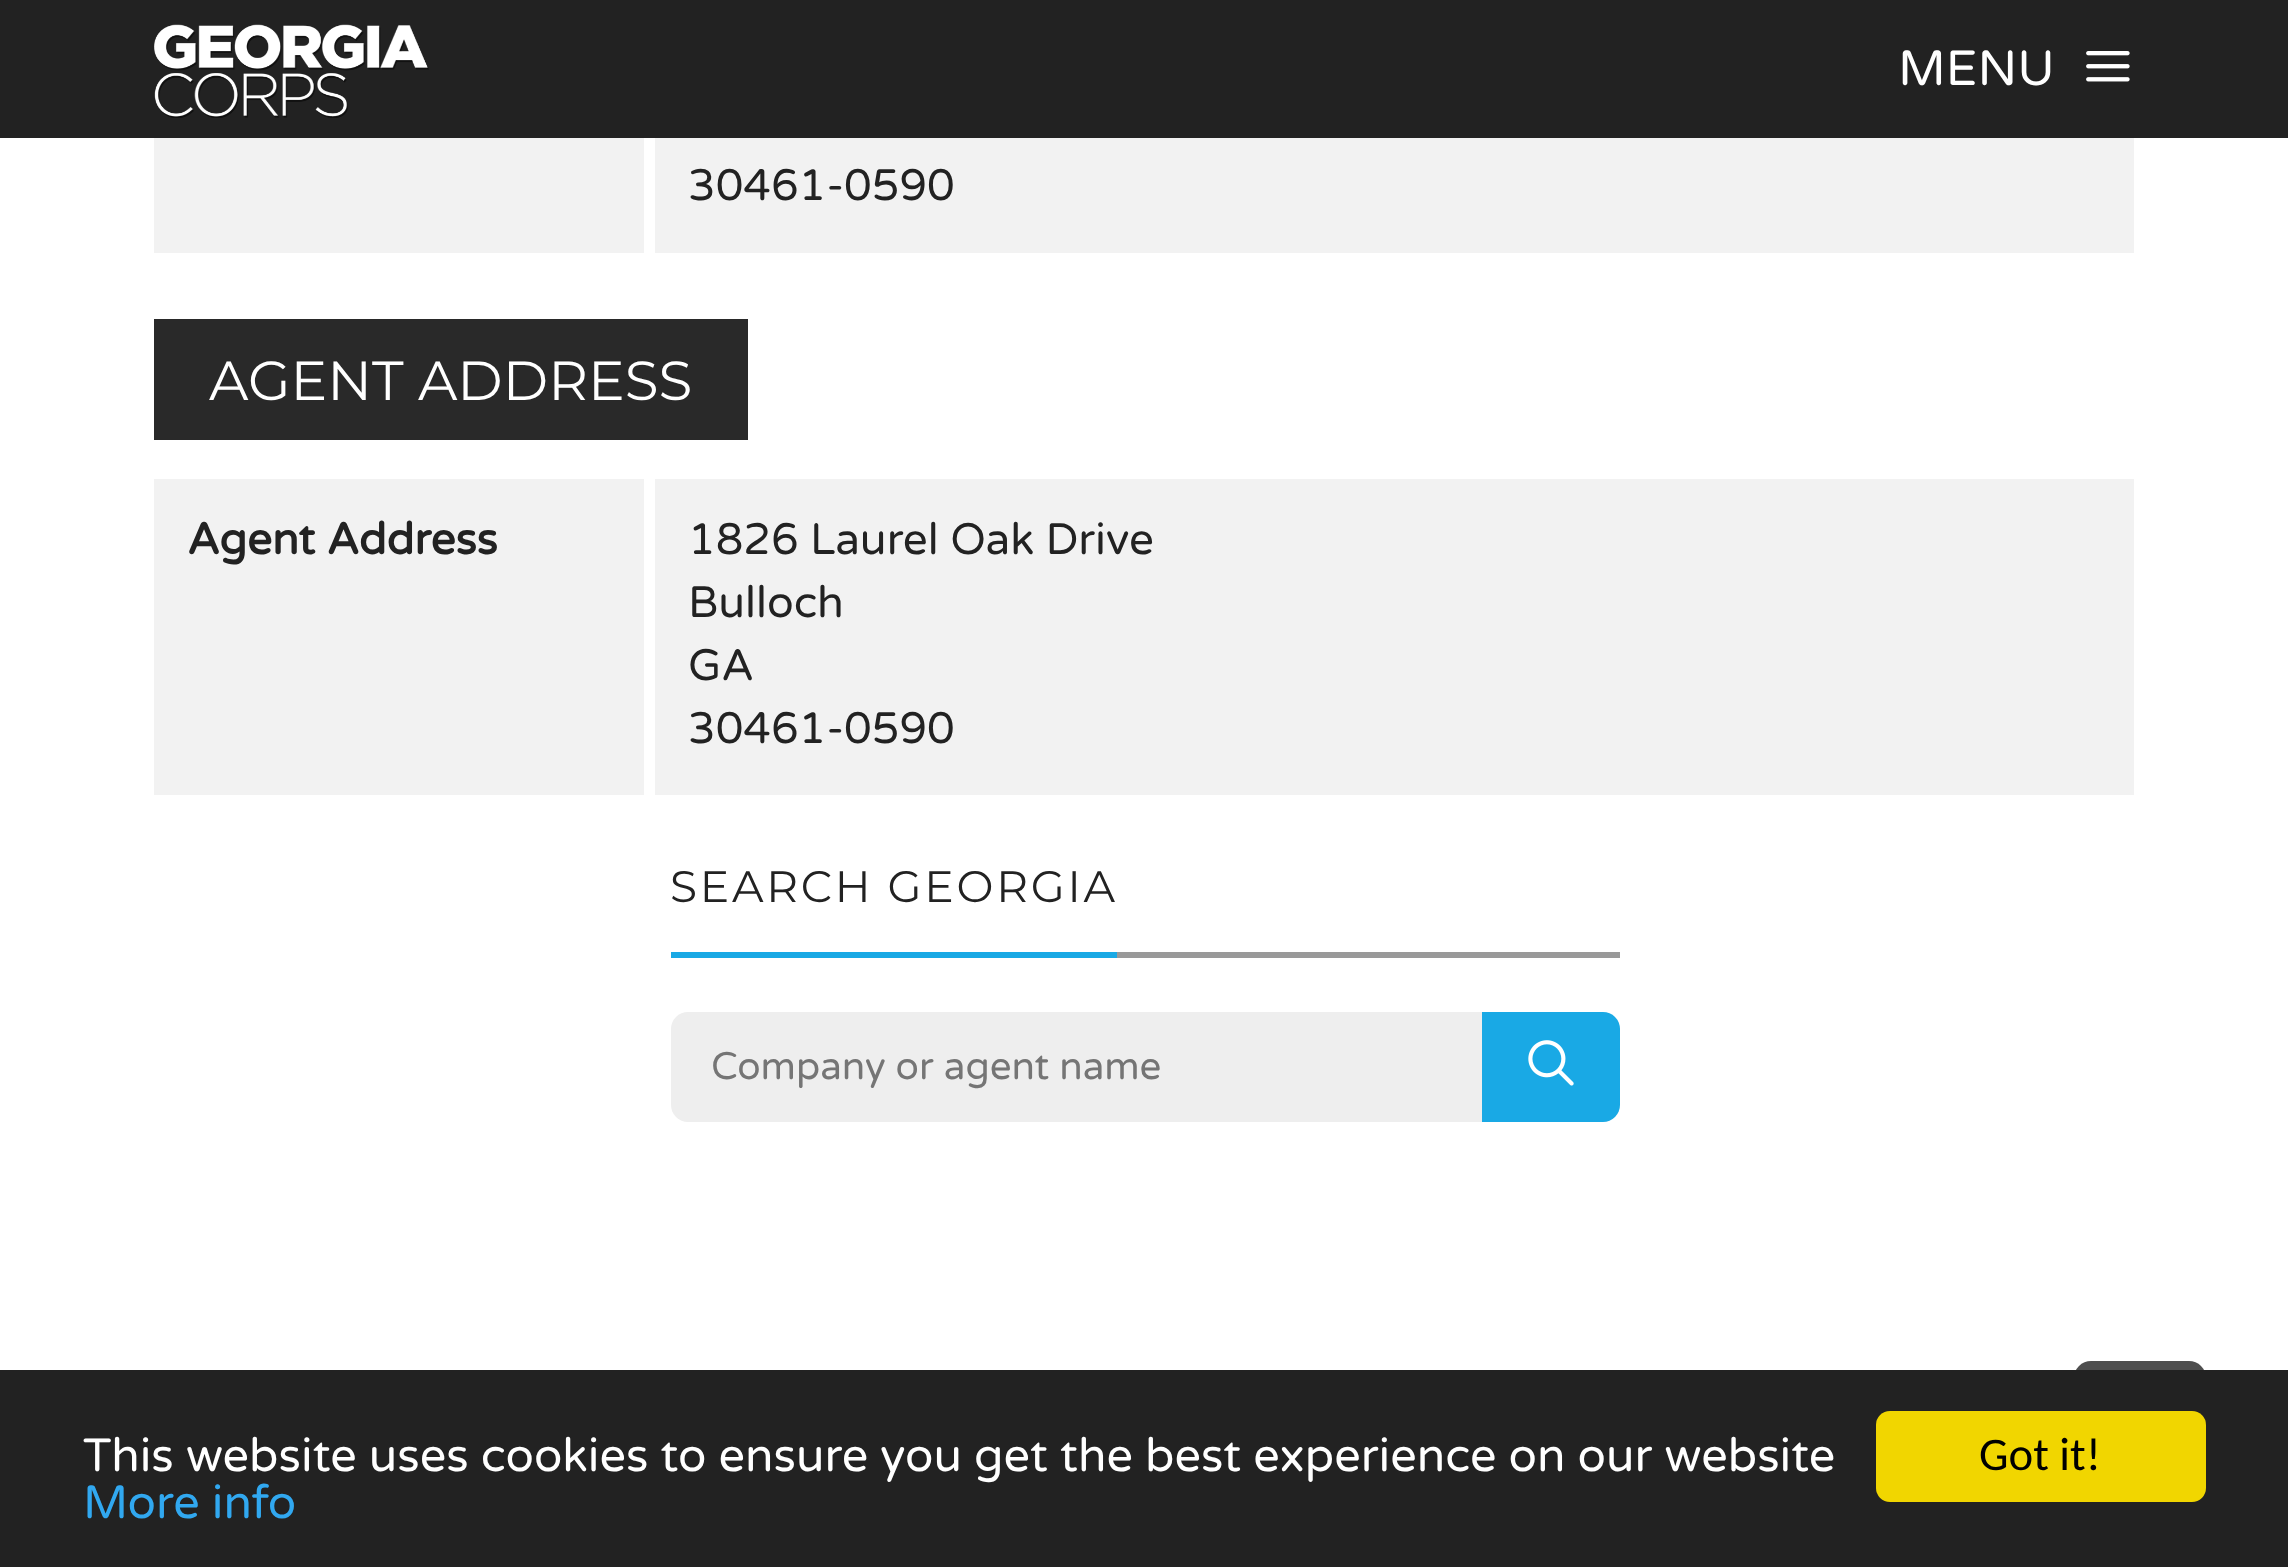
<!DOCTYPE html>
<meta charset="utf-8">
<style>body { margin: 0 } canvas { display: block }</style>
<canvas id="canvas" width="2288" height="1567"></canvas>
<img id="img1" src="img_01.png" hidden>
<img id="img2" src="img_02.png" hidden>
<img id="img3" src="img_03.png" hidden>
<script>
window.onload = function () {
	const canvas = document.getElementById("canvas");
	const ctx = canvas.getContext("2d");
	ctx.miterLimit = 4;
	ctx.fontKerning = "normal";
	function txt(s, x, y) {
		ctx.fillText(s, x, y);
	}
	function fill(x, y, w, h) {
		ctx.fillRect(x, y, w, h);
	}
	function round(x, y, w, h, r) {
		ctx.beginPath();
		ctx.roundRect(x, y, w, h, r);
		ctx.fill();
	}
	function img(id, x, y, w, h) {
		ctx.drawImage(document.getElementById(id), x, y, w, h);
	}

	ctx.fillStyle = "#FFFFFF";
	fill(0, 0, 2288, 1567);
	ctx.fillStyle = "#222222";
	fill(0, 0, 2288, 138);
	img("img1", 154, 24, 275, 94);
	img("img2", 2086, 51, 44, 31);
	ctx.fillStyle = "#F2F2F2";
	fill(154, 138, 490, 115);
	fill(655, 138, 1479, 115);
	ctx.fillStyle = "#292929";
	fill(154, 319, 594, 121);
	ctx.fillStyle = "#F2F2F2";
	fill(154, 479, 490, 316);
	fill(655, 479, 1479, 316);
	ctx.fillStyle = "#999999";
	fill(1117, 952, 503, 6);
	ctx.fillStyle = "#19A9E5";
	fill(671, 952, 446, 6);
	ctx.fillStyle = "#EEEEEE";
	ctx.beginPath();
	ctx.roundRect(671, 1012, 811, 110, [17, 0, 0, 17]);
	ctx.fill();
	ctx.fillStyle = "#19A9E5";
	ctx.beginPath();
	ctx.roundRect(1482, 1012, 138, 110, [0, 17, 17, 0]);
	ctx.fill();
	img("img3", 1528, 1040, 46, 46);
	ctx.fillStyle = "#4E4E4E";
	round(2074, 1361, 132, 132, 17);
	ctx.fillStyle = "#222222";
	fill(0, 1370, 2288, 197);
	ctx.fillStyle = "#F1D600";
	round(1876, 1411, 330, 91, 14);
	ctx.font = "49.5px Varela Round";
	ctx.fillStyle = "#FFFFFF";
	txt("MENU", 1898, 85);
	ctx.font = "44px Varela Round";
	ctx.fillStyle = "#222222";
	txt("30461-0590", 688, 200);
	ctx.font = "55px Montserrat";
	ctx.fillStyle = "#FFFFFF";
	txt("AGENT ADDRESS", 209, 400);
	ctx.font = "bold 44px Varela Round";
	ctx.fillStyle = "#222222";
	txt("Agent Address", 187, 554);
	ctx.font = "44px Varela Round";
	txt("1826 Laurel Oak Drive", 688, 554);
	txt("Bulloch", 688, 617);
	txt("GA", 688, 680);
	txt("30461-0590", 688, 743);
	ctx.letterSpacing = "2.75px";
	ctx.font = "44px Montserrat";
	txt("SEARCH GEORGIA", 670, 902);
	ctx.letterSpacing = "0px";
	ctx.font = "38.5px Varela Round";
	ctx.fillStyle = "#757575";
	txt("Company or agent name", 711, 1079);
	ctx.font = "46.75px Varela Round";
	ctx.fillStyle = "#FFFFFF";
	txt("This website uses cookies to ensure you get the best experience on our website", 83, 1471);
	ctx.fillStyle = "#31A8F0";
	txt("More info", 83, 1518);
	ctx.font = "46.75px Carlito";
	ctx.fillStyle = "#000000";
	txt("Got it!", 1979, 1470);
};
</script>
